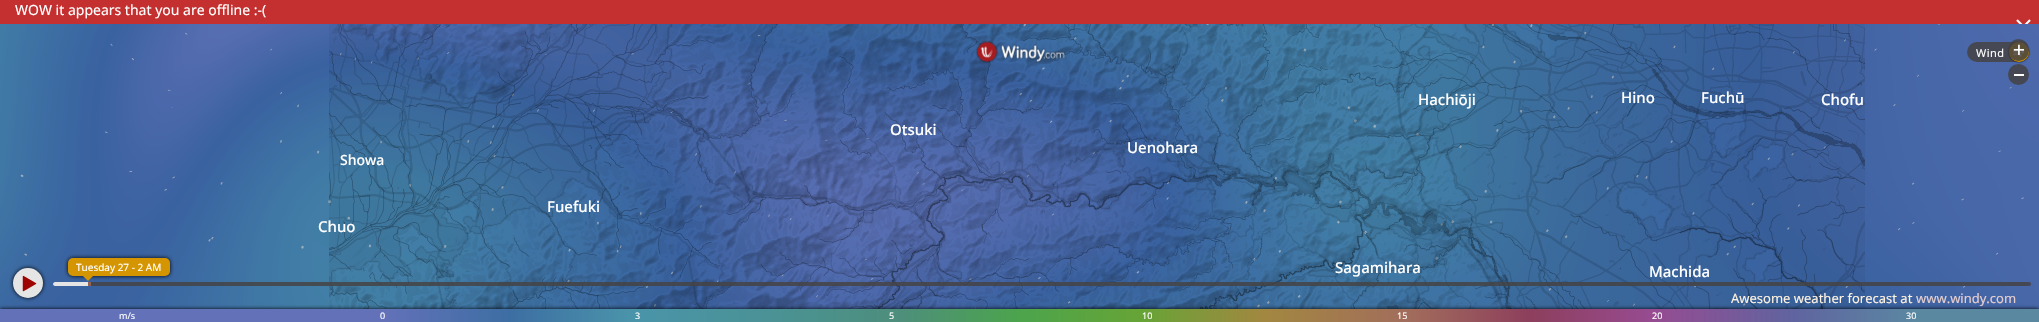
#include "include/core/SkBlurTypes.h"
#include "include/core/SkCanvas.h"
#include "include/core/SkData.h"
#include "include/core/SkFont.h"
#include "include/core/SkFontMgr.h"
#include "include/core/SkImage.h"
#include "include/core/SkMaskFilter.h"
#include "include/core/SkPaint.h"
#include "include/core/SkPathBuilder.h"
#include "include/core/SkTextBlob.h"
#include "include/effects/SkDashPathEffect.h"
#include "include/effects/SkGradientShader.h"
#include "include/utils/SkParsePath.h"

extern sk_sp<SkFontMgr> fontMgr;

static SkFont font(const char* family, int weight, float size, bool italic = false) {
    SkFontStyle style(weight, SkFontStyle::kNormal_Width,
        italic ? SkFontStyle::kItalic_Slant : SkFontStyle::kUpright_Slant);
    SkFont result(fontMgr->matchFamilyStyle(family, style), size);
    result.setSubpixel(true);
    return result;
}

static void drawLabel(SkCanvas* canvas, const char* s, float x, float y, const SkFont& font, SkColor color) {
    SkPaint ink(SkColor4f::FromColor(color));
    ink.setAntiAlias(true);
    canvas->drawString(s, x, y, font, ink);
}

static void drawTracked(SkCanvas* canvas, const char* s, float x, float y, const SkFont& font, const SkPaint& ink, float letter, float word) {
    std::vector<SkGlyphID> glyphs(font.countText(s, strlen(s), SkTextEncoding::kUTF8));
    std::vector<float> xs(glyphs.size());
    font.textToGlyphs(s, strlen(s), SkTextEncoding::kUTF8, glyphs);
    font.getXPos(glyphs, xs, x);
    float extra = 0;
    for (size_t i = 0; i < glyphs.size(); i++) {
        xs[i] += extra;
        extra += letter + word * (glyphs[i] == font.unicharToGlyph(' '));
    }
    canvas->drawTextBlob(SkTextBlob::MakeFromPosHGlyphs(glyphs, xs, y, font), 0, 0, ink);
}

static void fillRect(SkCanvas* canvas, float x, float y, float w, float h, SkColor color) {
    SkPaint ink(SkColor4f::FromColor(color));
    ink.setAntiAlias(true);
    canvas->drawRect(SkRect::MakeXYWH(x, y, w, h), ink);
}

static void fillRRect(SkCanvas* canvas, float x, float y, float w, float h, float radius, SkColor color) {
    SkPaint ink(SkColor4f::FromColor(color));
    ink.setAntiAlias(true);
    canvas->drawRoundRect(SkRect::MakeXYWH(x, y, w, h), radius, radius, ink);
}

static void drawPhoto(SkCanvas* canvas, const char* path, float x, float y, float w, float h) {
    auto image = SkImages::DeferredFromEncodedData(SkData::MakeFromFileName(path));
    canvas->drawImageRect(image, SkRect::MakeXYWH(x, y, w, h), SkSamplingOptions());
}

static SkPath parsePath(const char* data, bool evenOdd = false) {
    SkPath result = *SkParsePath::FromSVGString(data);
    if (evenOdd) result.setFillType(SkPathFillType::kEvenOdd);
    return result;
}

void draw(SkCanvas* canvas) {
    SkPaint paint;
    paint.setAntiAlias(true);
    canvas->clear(0xFFFFFFFF);
    fillRect(canvas, 0, 0, 2039, 24, 0xFFC42F2F);
    SkFont font1 = font("Noto Sans", 400, 14);
    drawLabel(canvas, "WOW it appears that you are offline :-(", 15, 15, font1, 0xFFFFFFFF);
    drawPhoto(canvas, "assets/img1.png", 2016, 19, 15, 5);
    drawPhoto(canvas, "assets/img10.png", 841, 24, 256, 176);
    drawPhoto(canvas, "assets/img6.png", 0, 24, 73, 176);
    drawPhoto(canvas, "assets/img7.png", 73, 24, 256, 176);
    drawPhoto(canvas, "assets/img8.png", 329, 24, 256, 176);
    drawPhoto(canvas, "assets/img9.png", 585, 24, 256, 176);
    drawPhoto(canvas, "assets/img11.png", 1097, 24, 256, 176);
    drawPhoto(canvas, "assets/img12.png", 1353, 24, 256, 176);
    drawPhoto(canvas, "assets/img13.png", 1609, 24, 256, 176);
    drawPhoto(canvas, "assets/img14.png", 1865, 24, 174, 176);
    drawPhoto(canvas, "assets/img15.png", 0, 200, 73, 109);
    drawPhoto(canvas, "assets/img16.png", 73, 200, 256, 109);
    drawPhoto(canvas, "assets/img17.png", 329, 200, 256, 109);
    drawPhoto(canvas, "assets/img18.png", 585, 200, 256, 109);
    drawPhoto(canvas, "assets/img19.png", 841, 200, 256, 109);
    drawPhoto(canvas, "assets/img20.png", 1097, 200, 256, 109);
    drawPhoto(canvas, "assets/img21.png", 1353, 200, 256, 109);
    drawPhoto(canvas, "assets/img22.png", 1609, 200, 256, 109);
    drawPhoto(canvas, "assets/img23.png", 1865, 200, 174, 109);
    drawPhoto(canvas, "assets/img24.png", 20, 24, 2004, 285);
    drawPhoto(canvas, "assets/img27.png", 841, 24, 256, 176);
    drawPhoto(canvas, "assets/img2.png", 975, 40, 24, 23);
    drawPhoto(canvas, "assets/img3.png", 1000, 44, 66, 19);
    fillRRect(canvas, 1967, 42, 62, 20, 10, 0xD6444141);
    SkFont font2 = font("Noto Sans", 400, 11);
    paint.setColor(0xFFFFFFFF);
    drawTracked(canvas, "Wind", 1976, 57, font2, paint, 0.5f, 0);
    paint.setColor(0xFF000000);
    paint.setMaskFilter(SkMaskFilter::MakeBlur(kNormal_SkBlurStyle, 1));
    canvas->drawRoundRect(SkRect::MakeXYWH(2009, 42, 20, 20), 10, 10, paint);
    paint.setMaskFilter(nullptr);
    paint.setColor(0xFFD49500);
    canvas->drawCircle(2019, 52, 10, paint);
    drawPhoto(canvas, "assets/img4.png", 2013, 50, 11, 7);
    fillRRect(canvas, 2008, 39, 21, 22, 10.5f, 0xD6444141);
    drawPhoto(canvas, "assets/img5.png", 2013, 44, 12, 11);
    paint.setColor(0xFF454752);
    canvas->drawCircle(2018.5f, 74.5f, 10.5f, paint);
    fillRect(canvas, 2014, 74, 10, 2, 0xFFFFFFFF);
    drawPhoto(canvas, "assets/img25.png", 329, 24, 256, 176);
    drawPhoto(canvas, "assets/img26.png", 585, 24, 256, 176);
    drawPhoto(canvas, "assets/img28.png", 1097, 24, 256, 176);
    drawPhoto(canvas, "assets/img29.png", 1353, 24, 256, 176);
    drawPhoto(canvas, "assets/img30.png", 1609, 24, 256, 176);
    drawPhoto(canvas, "assets/img31.png", 329, 200, 256, 109);
    drawPhoto(canvas, "assets/img32.png", 585, 200, 256, 109);
    drawPhoto(canvas, "assets/img33.png", 841, 200, 256, 109);
    drawPhoto(canvas, "assets/img34.png", 1097, 200, 256, 109);
    drawPhoto(canvas, "assets/img35.png", 1353, 200, 256, 109);
    drawPhoto(canvas, "assets/img36.png", 1609, 200, 256, 109);
    SkFont font3 = font("Noto Sans", 500, 15);
    drawLabel(canvas, "Hachiōji", 1418, 105, font3, 0xFFFFFFFF);
    drawLabel(canvas, "Hino", 1621, 103, font3, 0xFFFFFFFF);
    drawLabel(canvas, "Fuchū", 1701, 103, font3, 0xFFFFFFFF);
    drawLabel(canvas, "Chofu", 1821, 105, font3, 0xFFFFFFFF);
    drawLabel(canvas, "Otsuki", 890, 135, font3, 0xFFFFFFFF);
    drawLabel(canvas, "Uenohara", 1127, 153, font3, 0xFFFFFFFF);
    SkFont font4 = font("Noto Sans", 500, 14);
    drawLabel(canvas, "Showa", 340, 165, font4, 0xFFFFFFFF);
    drawLabel(canvas, "Fuefuki", 547, 212, font3, 0xFFFFFFFF);
    drawLabel(canvas, "Chuo", 318, 232, font3, 0xFFFFFFFF);
    drawLabel(canvas, "Sagamihara", 1335, 273, font3, 0xFFFFFFFF);
    drawLabel(canvas, "Machida", 1649, 277, font3, 0xFFFFFFFF);
    paint.setColor(0xFF000000);
    paint.setMaskFilter(SkMaskFilter::MakeBlur(kNormal_SkBlurStyle, 2));
    canvas->drawRoundRect(SkRect::MakeXYWH(13, 268, 30, 30), 15, 15, paint);
    paint.setMaskFilter(nullptr);
    paint.setColor(0xFFE5E5E5);
    canvas->drawCircle(28, 283, 15, paint);
    drawPhoto(canvas, "assets/img37.png", 22, 275, 15, 17);
    paint.setColor(0xFF000000);
    paint.setMaskFilter(SkMaskFilter::MakeBlur(kNormal_SkBlurStyle, 2));
    canvas->drawRoundRect(SkRect::MakeXYWH(68, 258, 102, 18), 5, 5, paint);
    paint.setMaskFilter(nullptr);
    fillRRect(canvas, 68, 258, 102, 18, 5, 0xFFD49500);
    SkFont font5 = font("Noto Sans", 400, 10);
    drawLabel(canvas, "Tuesday 27 - 2 AM", 76, 271, font5, 0xFFFFFFFF);
    paint.setColor(0xFFD49500);
    canvas->drawPath(parsePath("M83 276H93L88 281Z"), paint);
    fillRRect(canvas, 53, 282, 1978, 4, 2, 0xD6444141);
    paint.setColor(0xFFE5E5E5);
    canvas->drawPath(parsePath("M55 282H88V286H55C54 286 53 285 53 284C53 283 54 282 55 282Z"), paint);
    fillRect(canvas, 88, 282, 3, 4, 0xFF946051);
    paint.setColor(0xFF000000);
    paint.setMaskFilter(SkMaskFilter::MakeBlur(kNormal_SkBlurStyle, 2));
    canvas->drawRect(SkRect::MakeXYWH(0, 309, 2039, 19), paint);
    paint.setMaskFilter(nullptr);
    SkFont font6 = font("Noto Sans", 400, 13);
    drawLabel(canvas, "Awesome weather forecast at", 1731, 303, font6, 0xFFFFF3E1);
    drawLabel(canvas, "www.windy.com", 1916, 303, font6, 0xFFE6CECE);
    {
        const SkColor colors[] = {0xFF6271B8, 0xFF6271B8, 0xFF3D6EA3, 0xFF4A94AA, 0xFF4A9294, 0xFF4D8E7C, 0xFF4CA44C, 0xFF67A436, 0xFFA28740, 0xFFA26D5C, 0xFF8D3F5C, 0xFF974B91, 0xFF5F64A0, 0xFF5B88A1, 0xFF5B88A1};
        const float stops[] = {0, 0.19f, 0.25f, 0.31f, 0.38f, 0.44f, 0.5f, 0.56f, 0.62f, 0.69f, 0.75f, 0.81f, 0.88f, 0.94f, 1};
        const SkPoint ends[] = {{0, 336}, {2039, 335}};
        paint.setShader(SkGradientShader::MakeLinear(ends, colors, stops, 15, SkTileMode::kClamp));
        paint.setAlpha(255);
    }
    canvas->drawRect(SkRect::MakeXYWH(0, 309, 2039, 13), paint);
    SkFont font7 = font("Noto Sans", 400, 9);
    drawLabel(canvas, "m/s", 119, 319, font7, 0xFFFFFFFF);
    drawLabel(canvas, "0", 380, 319, font7, 0xFFFFFFFF);
    drawLabel(canvas, "3", 635, 319, font7, 0xFFFFFFFF);
    drawLabel(canvas, "5", 889, 319, font7, 0xFFFFFFFF);
    drawLabel(canvas, "10", 1142, 319, font7, 0xFFFFFFFF);
    drawLabel(canvas, "15", 1397, 319, font7, 0xFFFFFFFF);
    drawLabel(canvas, "20", 1652, 319, font7, 0xFFFFFFFF);
    drawLabel(canvas, "30", 1906, 319, font7, 0xFFFFFFFF);
}
